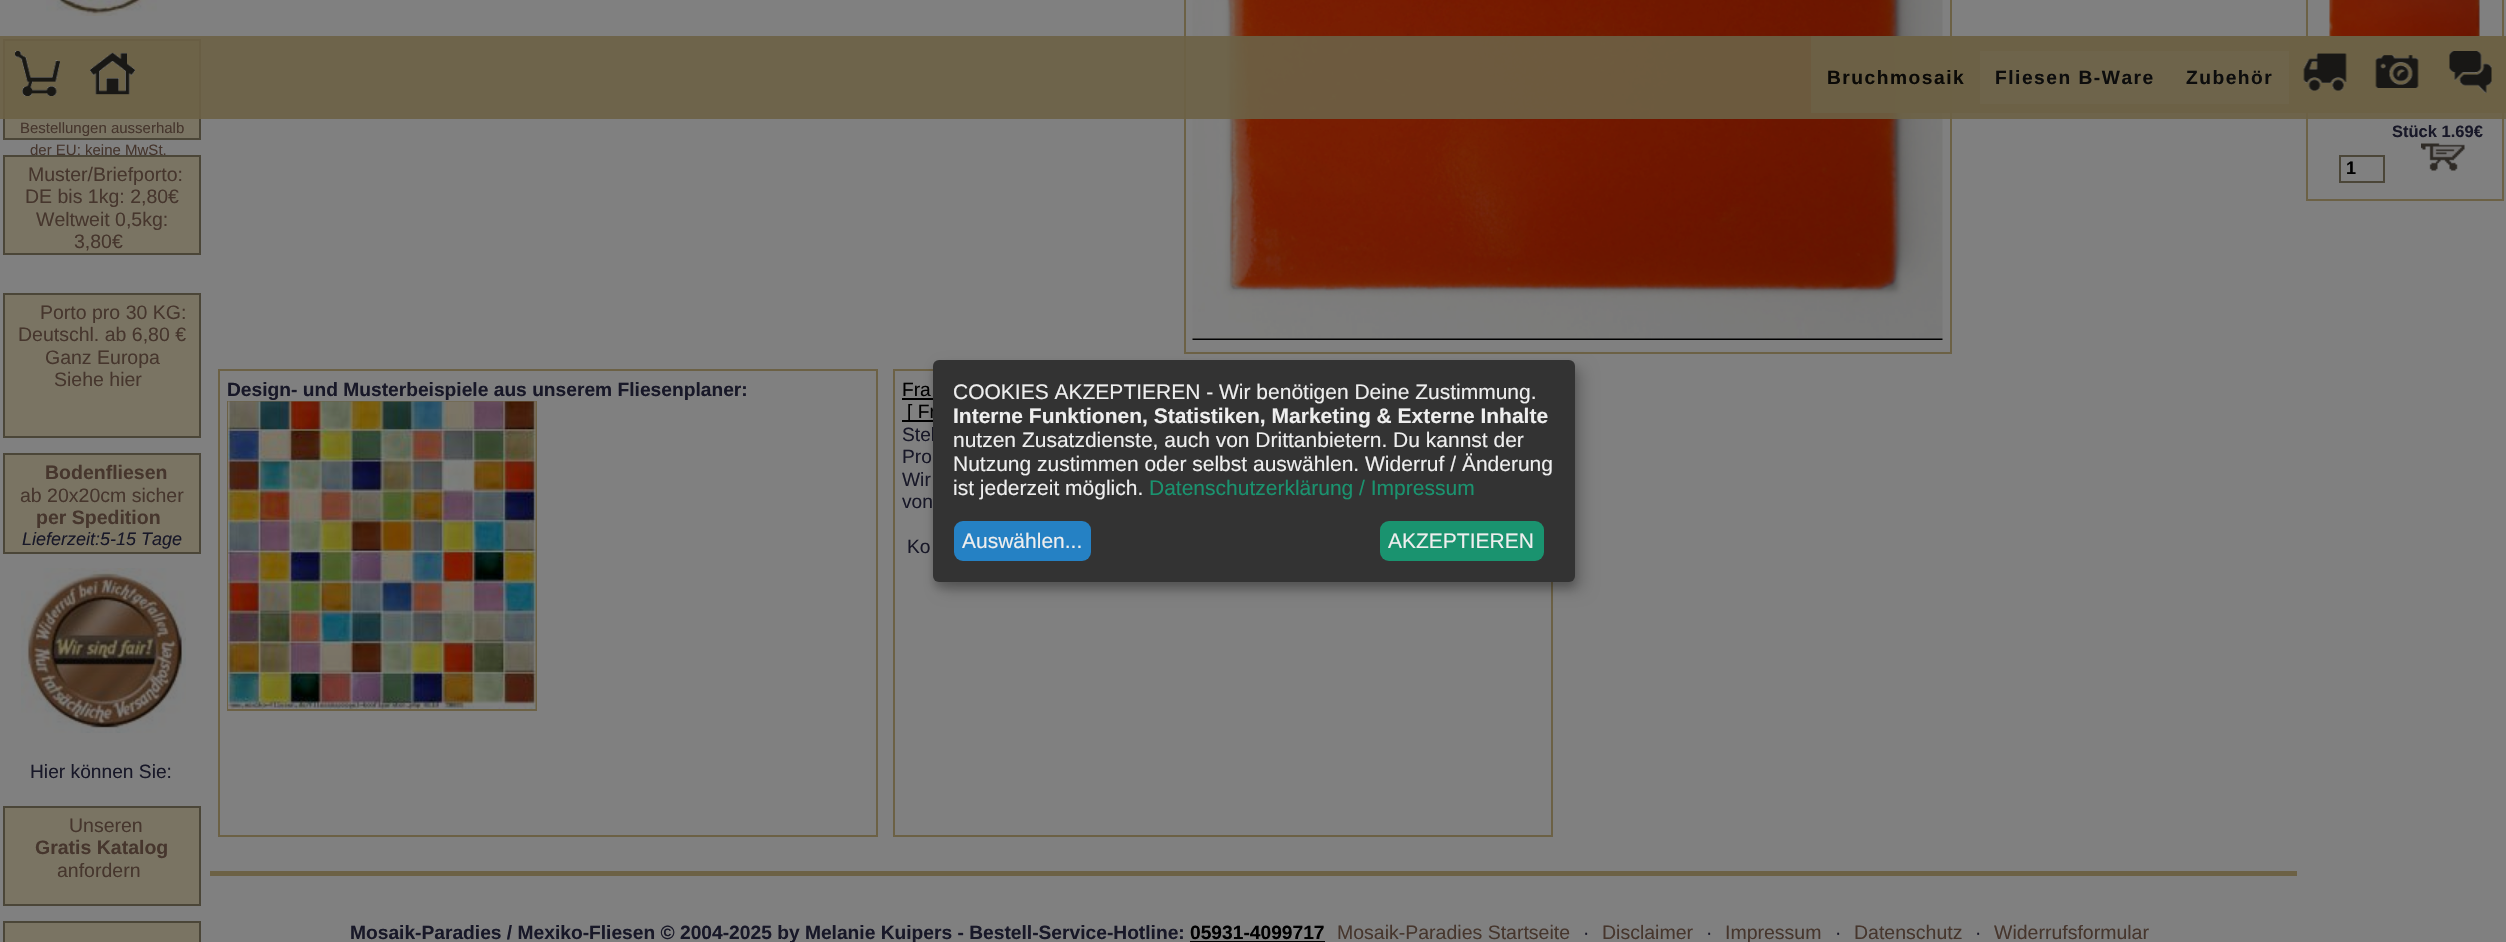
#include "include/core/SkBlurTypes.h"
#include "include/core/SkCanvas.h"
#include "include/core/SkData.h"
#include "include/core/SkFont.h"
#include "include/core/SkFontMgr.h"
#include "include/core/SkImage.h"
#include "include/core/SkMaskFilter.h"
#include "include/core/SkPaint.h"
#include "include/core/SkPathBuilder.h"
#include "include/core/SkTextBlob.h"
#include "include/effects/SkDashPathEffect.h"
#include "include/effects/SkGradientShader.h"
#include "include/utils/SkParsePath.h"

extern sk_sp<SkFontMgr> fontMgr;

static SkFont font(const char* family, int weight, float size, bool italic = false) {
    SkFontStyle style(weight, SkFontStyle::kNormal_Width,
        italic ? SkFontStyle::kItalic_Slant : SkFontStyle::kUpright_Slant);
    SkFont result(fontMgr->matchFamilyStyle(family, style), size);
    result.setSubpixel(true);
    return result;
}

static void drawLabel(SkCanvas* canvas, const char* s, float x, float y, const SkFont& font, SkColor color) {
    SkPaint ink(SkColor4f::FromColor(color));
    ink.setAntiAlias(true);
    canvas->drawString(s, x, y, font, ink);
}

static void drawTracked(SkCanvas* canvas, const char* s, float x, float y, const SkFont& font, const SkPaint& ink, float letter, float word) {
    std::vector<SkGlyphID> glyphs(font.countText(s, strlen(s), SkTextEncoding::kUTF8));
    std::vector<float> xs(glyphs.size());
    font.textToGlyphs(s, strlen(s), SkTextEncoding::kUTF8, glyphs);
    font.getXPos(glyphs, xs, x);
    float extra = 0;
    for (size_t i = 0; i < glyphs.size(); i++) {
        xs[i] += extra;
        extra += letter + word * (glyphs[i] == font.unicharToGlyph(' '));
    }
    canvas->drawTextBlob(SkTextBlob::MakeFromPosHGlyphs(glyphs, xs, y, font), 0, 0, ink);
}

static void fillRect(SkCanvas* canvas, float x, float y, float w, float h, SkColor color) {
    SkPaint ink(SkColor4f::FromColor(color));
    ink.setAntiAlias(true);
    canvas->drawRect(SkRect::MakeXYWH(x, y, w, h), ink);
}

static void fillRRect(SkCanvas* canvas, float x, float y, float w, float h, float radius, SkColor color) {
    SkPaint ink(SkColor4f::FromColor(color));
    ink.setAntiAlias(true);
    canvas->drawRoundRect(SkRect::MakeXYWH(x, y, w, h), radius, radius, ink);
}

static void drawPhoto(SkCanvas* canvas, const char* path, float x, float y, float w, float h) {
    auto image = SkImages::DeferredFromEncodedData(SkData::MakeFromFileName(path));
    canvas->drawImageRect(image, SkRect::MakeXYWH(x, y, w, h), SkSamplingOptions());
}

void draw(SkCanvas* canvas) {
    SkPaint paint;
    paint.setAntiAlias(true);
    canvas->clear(0xFF808080);
    paint.setColor(0xFF7A7463);
    canvas->drawRect(SkRect::MakeXYWH(4, 40, 196, 99), paint);
    paint.setStroke(true);
    paint.setStrokeWidth(2);
    paint.setColor(0xFF4B4638);
    canvas->drawRect(SkRect::MakeXYWH(4, 40, 196, 99), paint);
    paint.setColor(0xFF6C6145);
    canvas->drawRect(SkRect::MakeXYWH(1185, -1, 766, 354), paint);
    drawPhoto(canvas, "assets/img8.png", 1192, 0, 751, 340);
    canvas->drawRect(SkRect::MakeXYWH(2307, -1, 196, 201), paint);
    fillRect(canvas, 0, 36, 2506, 83, 0xE66C6145);
    drawPhoto(canvas, "assets/img1.png", 15, 51, 45, 45);
    drawPhoto(canvas, "assets/img2.png", 90, 52, 45, 43);
    fillRect(canvas, 1811, 36, 478, 77, 0xE66C6145);
    fillRect(canvas, 2289, 36, 217, 77, 0xFF6C6145);
    drawPhoto(canvas, "assets/img3.png", 2303, 53, 44, 38);
    SkFont font1 = font("Liberation Sans", 700, 19.2f);
    paint.setStroke(false);
    paint.setColor(0xFF0B0A07);
    drawTracked(canvas, "Bruchmosaik", 1827, 84, font1, paint, 1.5f, 0);
    fillRect(canvas, 1980, 51, 309, 53, 0xFF6E644B);
    paint.setColor(0xFF0D0D0D);
    drawTracked(canvas, "Fliesen B-Ware", 1995, 84, font1, paint, 1.5f, 0);
    drawTracked(canvas, "Zubehör", 2186, 84, font1, paint, 1.5f, 0);
    drawPhoto(canvas, "assets/img4.png", 2375, 55, 44, 33);
    drawPhoto(canvas, "assets/img5.png", 2449, 51, 43, 42);
    drawPhoto(canvas, "assets/img6.png", 46, 0, 111, 16);
    SkFont font2 = font("Liberation Sans", 400, 15);
    drawLabel(canvas, "Bestellungen ausserhalb", 20, 133, font2, 0xFF46362D);
    paint.setColor(0xFF7A7463);
    canvas->drawRect(SkRect::MakeXYWH(4, 156, 196, 98), paint);
    paint.setStroke(true);
    paint.setColor(0xFF4B4638);
    canvas->drawRect(SkRect::MakeXYWH(4, 156, 196, 98), paint);
    drawLabel(canvas, "der EU: keine MwSt.", 30, 155, font2, 0xFF46362D);
    SkFont font3 = font("Liberation Sans", 400, 19.5f);
    drawLabel(canvas, "Muster/Briefporto:", 28, 181, font3, 0xFF46362D);
    drawLabel(canvas, "DE bis 1kg: 2,80€", 25, 203, font3, 0xFF46362D);
    drawLabel(canvas, "Weltweit 0,5kg:", 36, 226, font3, 0xFF46362D);
    drawLabel(canvas, "3,80€", 74, 248, font3, 0xFF46362D);
    paint.setStroke(false);
    paint.setColor(0xFF7A7463);
    canvas->drawRect(SkRect::MakeXYWH(4, 294, 196, 143), paint);
    paint.setStroke(true);
    paint.setColor(0xFF4B4638);
    canvas->drawRect(SkRect::MakeXYWH(4, 294, 196, 143), paint);
    drawLabel(canvas, "Porto pro 30 KG:", 40, 319, font3, 0xFF46362D);
    drawLabel(canvas, "Deutschl. ab 6,80 €", 18, 341, font3, 0xFF46362D);
    drawLabel(canvas, "Ganz Europa", 45, 364, font3, 0xFF46362D);
    drawLabel(canvas, "Siehe hier", 54, 386, font3, 0xFF46362D);
    paint.setStroke(false);
    paint.setColor(0xFF7A7463);
    canvas->drawRect(SkRect::MakeXYWH(4, 454, 196, 99), paint);
    paint.setStroke(true);
    paint.setColor(0xFF4B4638);
    canvas->drawRect(SkRect::MakeXYWH(4, 454, 196, 99), paint);
    SkFont font4 = font("Liberation Sans", 700, 19.5f);
    drawLabel(canvas, "Bodenfliesen", 45, 479, font4, 0xFF46362D);
    drawLabel(canvas, "ab 20x20cm sicher", 20, 502, font3, 0xFF46362D);
    drawLabel(canvas, "per Spedition", 36, 524, font4, 0xFF46362D);
    SkFont font5 = font("Liberation Sans", 400, 18, true);
    drawLabel(canvas, "Lieferzeit:5-15 Tage", 22, 545, font5, 0xFF181828);
    drawPhoto(canvas, "assets/img7.png", 21, 568, 165, 165);
    SkFont font6 = font("Liberation Sans", 400, 19.2f);
    drawLabel(canvas, "Hier können Sie:", 30, 778, font6, 0xFF181828);
    paint.setStroke(false);
    paint.setColor(0xFF7A7463);
    canvas->drawRect(SkRect::MakeXYWH(4, 807, 196, 98), paint);
    paint.setStroke(true);
    paint.setColor(0xFF4B4638);
    canvas->drawRect(SkRect::MakeXYWH(4, 807, 196, 98), paint);
    drawLabel(canvas, "Unseren", 69, 832, font3, 0xFF46362D);
    drawLabel(canvas, "Gratis Katalog", 35, 854, font4, 0xFF46362D);
    drawLabel(canvas, "anfordern", 57, 877, font3, 0xFF46362D);
    paint.setStroke(false);
    paint.setColor(0xFF7A7463);
    canvas->drawRect(SkRect::MakeXYWH(4, 922, 196, 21), paint);
    paint.setStroke(true);
    paint.setColor(0xFF4B4638);
    canvas->drawRect(SkRect::MakeXYWH(4, 922, 196, 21), paint);
    drawPhoto(canvas, "assets/img9.png", 2329, 0, 151, 36);
    SkFont font7 = font("Liberation Sans", 700, 16.5f);
    drawLabel(canvas, "Stück 1.69€", 2392, 137, font7, 0xFF181828);
    canvas->drawRect(SkRect::MakeXYWH(2340, 156, 44, 26), paint);
    SkFont font8 = font("Liberation Sans", 700, 18);
    drawLabel(canvas, "1", 2346, 174, font8, 0xFF000000);
    drawPhoto(canvas, "assets/img10.png", 2421, 143, 44, 28);
    paint.setColor(0xFF6C6145);
    canvas->drawRect(SkRect::MakeXYWH(219, 370, 658, 466), paint);
    drawLabel(canvas, "Design- und Musterbeispiele aus unserem Fliesenplaner:", 227, 396, font1, 0xFF181828);
    canvas->drawRect(SkRect::MakeXYWH(228, 402, 308, 308), paint);
    drawPhoto(canvas, "assets/img11.png", 228, 401, 308, 308);
    canvas->drawRect(SkRect::MakeXYWH(894, 370, 658, 466), paint);
    drawLabel(canvas, "Fra", 902, 396, font6, 0xFF000000);
    fillRect(canvas, 902, 398, 31, 2, 0xFF000000);
    fillRect(canvas, 902, 420, 31, 2, 0xFF000000);
    drawLabel(canvas, "[ Fr", 907, 418, font6, 0xFF000000);
    drawLabel(canvas, "Stel", 902, 441, font6, 0xFF181828);
    drawLabel(canvas, "Pro", 902, 463, font6, 0xFF181828);
    drawLabel(canvas, "Wir", 902, 486, font6, 0xFF181828);
    drawLabel(canvas, "von", 902, 508, font6, 0xFF181828);
    drawLabel(canvas, "Ko", 907, 553, font6, 0xFF181828);
    paint.setStroke(false);
    paint.setColor(0x30000000);
    paint.setMaskFilter(SkMaskFilter::MakeBlur(kNormal_SkBlurStyle, 7.5f));
    canvas->drawRoundRect(SkRect::MakeXYWH(941, 368, 642, 222), 6, 6, paint);
    paint.setMaskFilter(nullptr);
    paint.setColor(0x33000000);
    paint.setMaskFilter(SkMaskFilter::MakeBlur(kNormal_SkBlurStyle, 4.5f));
    canvas->drawRoundRect(SkRect::MakeXYWH(933, 366, 642, 222), 6, 6, paint);
    paint.setMaskFilter(nullptr);
    fillRRect(canvas, 933, 360, 642, 222, 6, 0xFF333333);
    SkFont font9 = font("Liberation Sans", 400, 21);
    drawLabel(canvas, "COOKIES AKZEPTIEREN - Wir benötigen Deine Zustimmung.", 953, 399, font9, 0xFFEEEEEE);
    SkFont font10 = font("Liberation Sans", 700, 21);
    drawLabel(canvas, "Interne Funktionen, Statistiken, Marketing & Externe Inhalte", 953, 423, font10, 0xFFEEEEEE);
    drawLabel(canvas, "nutzen Zusatzdienste, auch von Drittanbietern. Du kannst der", 953, 447, font9, 0xFFEEEEEE);
    drawLabel(canvas, "Nutzung zustimmen oder selbst auswählen. Widerruf / Änderung", 953, 471, font9, 0xFFEEEEEE);
    drawLabel(canvas, "ist jederzeit möglich.", 953, 495, font9, 0xFFEEEEEE);
    drawLabel(canvas, "Datenschutzerklärung / Impressum", 1149, 495, font9, 0xFF1A936F);
    fillRRect(canvas, 954, 521, 137, 40, 9, 0xFF2581C4);
    drawLabel(canvas, "Auswählen...", 962, 548, font9, 0xFFEEEEEE);
    fillRRect(canvas, 1380, 521, 164, 40, 9, 0xFF1A936F);
    drawLabel(canvas, "AKZEPTIEREN", 1388, 548, font9, 0xFFEEEEEE);
    fillRect(canvas, 210, 871, 2087, 5, 0xFF6C6145);
    drawLabel(canvas, "Mosaik-Paradies / Mexiko-Fliesen © 2004-2025 by Melanie Kuipers - Bestell-Service-Hotline:", 350, 939, font1, 0xFF181828);
    drawLabel(canvas, "05931-4099717", 1190, 939, font1, 0xFF000000);
    fillRect(canvas, 1190, 941, 135, 1, 0xFF000000);
    drawLabel(canvas, "Mosaik-Paradies Startseite", 1337, 939, font3, 0xFF46362D);
    drawLabel(canvas, "·", 1583, 939, font6, 0xFF181828);
    drawLabel(canvas, "Disclaimer", 1602, 939, font3, 0xFF46362D);
    drawLabel(canvas, "·", 1706, 939, font6, 0xFF181828);
    drawLabel(canvas, "Impressum", 1725, 939, font3, 0xFF46362D);
    drawLabel(canvas, "·", 1835, 939, font6, 0xFF181828);
    drawLabel(canvas, "Datenschutz", 1854, 939, font3, 0xFF46362D);
    drawLabel(canvas, "·", 1975, 939, font6, 0xFF181828);
    drawLabel(canvas, "Widerrufsformular", 1994, 939, font3, 0xFF46362D);
}
